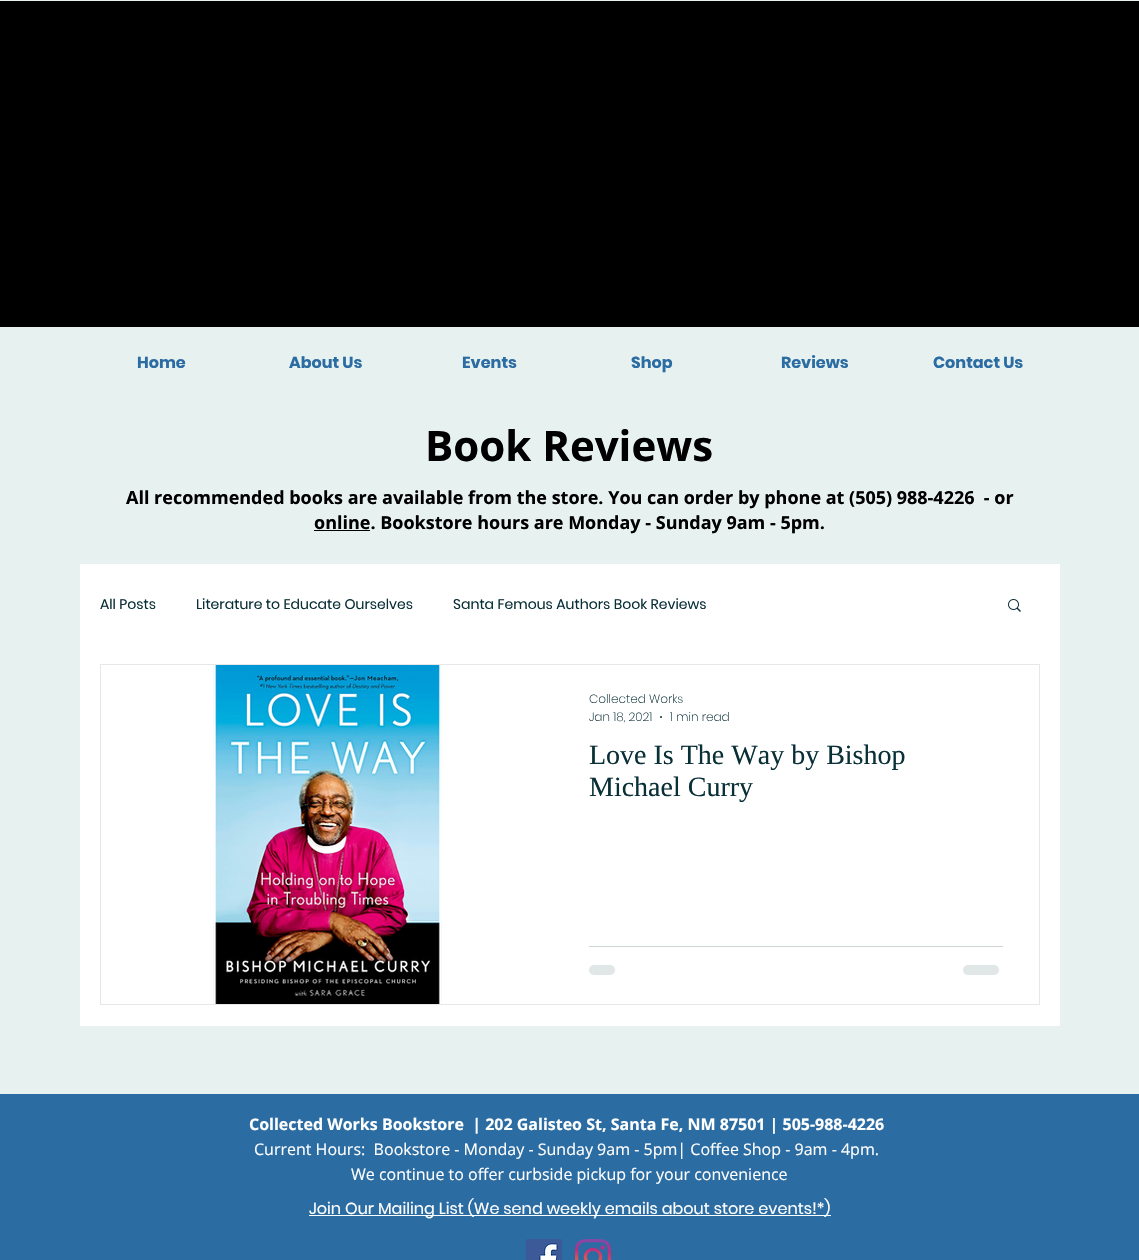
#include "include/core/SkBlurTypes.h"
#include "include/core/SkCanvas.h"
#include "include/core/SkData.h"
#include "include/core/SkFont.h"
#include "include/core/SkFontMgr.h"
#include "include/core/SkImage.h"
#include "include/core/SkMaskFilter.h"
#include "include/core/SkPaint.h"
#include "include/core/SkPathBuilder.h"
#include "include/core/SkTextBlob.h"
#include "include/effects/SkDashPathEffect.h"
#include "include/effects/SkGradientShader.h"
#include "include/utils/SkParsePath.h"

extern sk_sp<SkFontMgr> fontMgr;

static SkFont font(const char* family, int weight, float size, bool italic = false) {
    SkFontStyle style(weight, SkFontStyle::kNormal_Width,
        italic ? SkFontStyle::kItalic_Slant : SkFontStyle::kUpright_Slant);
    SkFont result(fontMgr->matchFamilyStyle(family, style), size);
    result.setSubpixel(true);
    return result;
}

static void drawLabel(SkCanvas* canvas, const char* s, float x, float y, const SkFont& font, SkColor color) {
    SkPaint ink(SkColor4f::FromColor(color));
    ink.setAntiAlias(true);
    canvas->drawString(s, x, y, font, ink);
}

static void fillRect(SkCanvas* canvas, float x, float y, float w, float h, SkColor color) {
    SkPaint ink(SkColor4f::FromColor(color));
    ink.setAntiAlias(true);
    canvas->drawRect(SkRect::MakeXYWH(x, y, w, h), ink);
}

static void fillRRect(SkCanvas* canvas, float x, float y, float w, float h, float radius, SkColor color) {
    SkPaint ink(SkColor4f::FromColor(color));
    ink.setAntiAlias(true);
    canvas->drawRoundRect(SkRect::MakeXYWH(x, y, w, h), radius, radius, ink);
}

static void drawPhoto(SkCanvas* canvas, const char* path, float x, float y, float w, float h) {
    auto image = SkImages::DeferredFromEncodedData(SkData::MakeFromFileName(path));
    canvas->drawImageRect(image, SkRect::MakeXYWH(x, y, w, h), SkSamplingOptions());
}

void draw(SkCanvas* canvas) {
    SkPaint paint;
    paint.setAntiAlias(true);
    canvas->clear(0xFFE7F1F0);
    fillRect(canvas, 0, 1, 1139, 326, 0xFF000000);
    SkFont font1 = font("Poppins", 700, 16);
    drawLabel(canvas, "Home", 137, 368, font1, 0xFF2B6CA3);
    drawLabel(canvas, "About Us", 289, 368, font1, 0xFF2B6CA3);
    drawLabel(canvas, "Events", 462, 368, font1, 0xFF2B6CA3);
    drawLabel(canvas, "Shop", 631, 368, font1, 0xFF2B6CA3);
    drawLabel(canvas, "Reviews", 781, 368, font1, 0xFF2B6CA3);
    drawLabel(canvas, "Contact Us", 933, 368, font1, 0xFF2B6CA3);
    SkFont font2 = font("Open Sans", 700, 42);
    drawLabel(canvas, "Book Reviews", 425, 461, font2, 0xFF000000);
    SkFont font3 = font("Open Sans", 700, 18);
    drawLabel(canvas, "All recommended books are available from the store. You can order by phone at (505) 988-4226  - or", 126, 504, font3, 0xFF000000);
    fillRect(canvas, 314, 530, 56, 1, 0xFF000000);
    drawLabel(canvas, "online. Bookstore hours are Monday - Sunday 9am - 5pm.", 314, 529, font3, 0xFF000000);
    fillRect(canvas, 80, 564, 980, 462, 0xFFFFFFFF);
    SkFont font4 = font("Poppins", 400, 14);
    drawLabel(canvas, "All Posts", 100, 609, font4, 0xFF092F37);
    drawLabel(canvas, "Literature to Educate Ourselves", 196, 609, font4, 0xFF092F37);
    drawLabel(canvas, "Santa Femous Authors Book Reviews", 453, 609, font4, 0xFF092F37);
    drawPhoto(canvas, "assets/img1.png", 1008, 599, 13, 13);
    paint.setStroke(true);
    paint.setStrokeWidth(1);
    paint.setColor(0xFFE8E6E6);
    canvas->drawRect(SkRect::MakeXYWH(100.5f, 664.5f, 939, 340), paint);
    drawPhoto(canvas, "assets/img2.png", 151, 665, 354, 339);
    SkFont font5 = font("Poppins", 200, 12);
    drawLabel(canvas, "Collected Works", 589, 703, font5, 0xFF092F37);
    drawLabel(canvas, "Jan 18, 2021", 589, 721, font5, 0xFF092F37);
    paint.setStroke(false);
    paint.setColor(0xFF092F37);
    canvas->drawCircle(661, 717, 1, paint);
    drawLabel(canvas, "1 min read", 670, 721, font5, 0xFF092F37);
    SkFont font6 = font("Liberation Serif", 400, 28);
    drawLabel(canvas, "Love Is The Way by Bishop", 589, 764, font6, 0xFF092F37);
    drawLabel(canvas, "Michael Curry", 589, 796, font6, 0xFF092F37);
    fillRect(canvas, 589, 946, 414, 1, 0xFFCED5D7);
    fillRRect(canvas, 589, 965, 26, 10, 5, 0xFFE1E6E7);
    fillRRect(canvas, 963, 965, 36, 10, 5, 0xFFE1E6E7);
    fillRect(canvas, 0, 1094, 1139, 166, 0xFF2B6CA3);
    SkFont font7 = font("Open Sans", 700, 16);
    drawLabel(canvas, "Collected Works Bookstore  | 202 Galisteo St, Santa Fe, NM 87501 | 505-988-4226", 249, 1130, font7, 0xFFFFFFFE);
    SkFont font8 = font("Open Sans", 400, 16);
    drawLabel(canvas, "Current Hours:  Bookstore - Monday - Sunday 9am - 5pm| Coffee Shop - 9am - 4pm.", 254, 1155, font8, 0xFFFFFFFE);
    drawLabel(canvas, "We continue to offer curbside pickup for your convenience", 351, 1180, font8, 0xFFFFFFFE);
    fillRect(canvas, 309, 1215, 522, 1, 0xFFFFFFFE);
    SkFont font9 = font("Poppins", 400, 16);
    drawLabel(canvas, "Join Our Mailing List (We send weekly emails about store events!*)", 309, 1214, font9, 0xFFFFFFFE);
    drawPhoto(canvas, "assets/img3.png", 526, 1239, 36, 21);
    drawPhoto(canvas, "assets/img4.png", 575, 1239, 36, 21);
}
